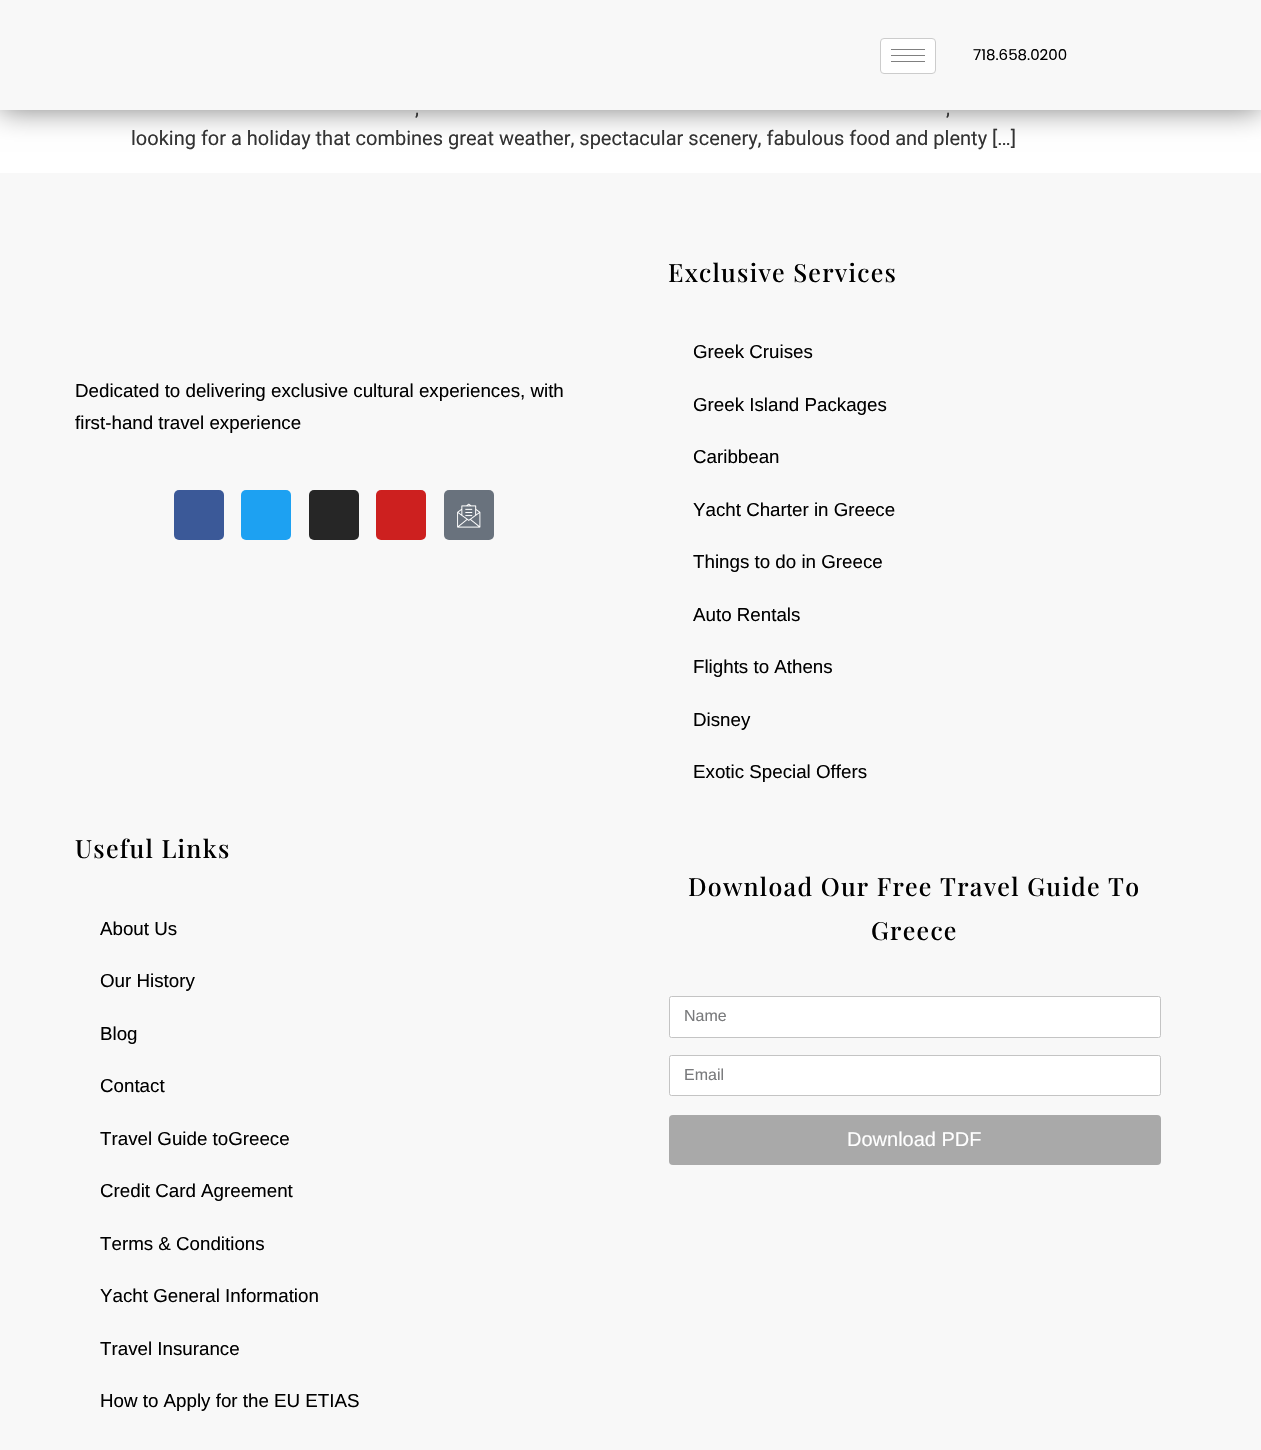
#include "include/core/SkBlurTypes.h"
#include "include/core/SkCanvas.h"
#include "include/core/SkData.h"
#include "include/core/SkFont.h"
#include "include/core/SkFontMgr.h"
#include "include/core/SkImage.h"
#include "include/core/SkMaskFilter.h"
#include "include/core/SkPaint.h"
#include "include/core/SkPathBuilder.h"
#include "include/core/SkTextBlob.h"
#include "include/effects/SkDashPathEffect.h"
#include "include/effects/SkGradientShader.h"
#include "include/utils/SkParsePath.h"

extern sk_sp<SkFontMgr> fontMgr;

static SkFont font(const char* family, int weight, float size, bool italic = false) {
    SkFontStyle style(weight, SkFontStyle::kNormal_Width,
        italic ? SkFontStyle::kItalic_Slant : SkFontStyle::kUpright_Slant);
    SkFont result(fontMgr->matchFamilyStyle(family, style), size);
    result.setSubpixel(true);
    return result;
}

static void drawLabel(SkCanvas* canvas, const char* s, float x, float y, const SkFont& font, SkColor color) {
    SkPaint ink(SkColor4f::FromColor(color));
    ink.setAntiAlias(true);
    canvas->drawString(s, x, y, font, ink);
}

static void drawTracked(SkCanvas* canvas, const char* s, float x, float y, const SkFont& font, const SkPaint& ink, float letter, float word) {
    std::vector<SkGlyphID> glyphs(font.countText(s, strlen(s), SkTextEncoding::kUTF8));
    std::vector<float> xs(glyphs.size());
    font.textToGlyphs(s, strlen(s), SkTextEncoding::kUTF8, glyphs);
    font.getXPos(glyphs, xs, x);
    float extra = 0;
    for (size_t i = 0; i < glyphs.size(); i++) {
        xs[i] += extra;
        extra += letter + word * (glyphs[i] == font.unicharToGlyph(' '));
    }
    canvas->drawTextBlob(SkTextBlob::MakeFromPosHGlyphs(glyphs, xs, y, font), 0, 0, ink);
}

static void fillRect(SkCanvas* canvas, float x, float y, float w, float h, SkColor color) {
    SkPaint ink(SkColor4f::FromColor(color));
    ink.setAntiAlias(true);
    canvas->drawRect(SkRect::MakeXYWH(x, y, w, h), ink);
}

static void fillRRect(SkCanvas* canvas, float x, float y, float w, float h, float radius, SkColor color) {
    SkPaint ink(SkColor4f::FromColor(color));
    ink.setAntiAlias(true);
    canvas->drawRoundRect(SkRect::MakeXYWH(x, y, w, h), radius, radius, ink);
}

static void drawPhoto(SkCanvas* canvas, const char* path, float x, float y, float w, float h) {
    auto image = SkImages::DeferredFromEncodedData(SkData::MakeFromFileName(path));
    canvas->drawImageRect(image, SkRect::MakeXYWH(x, y, w, h), SkSamplingOptions());
}

void draw(SkCanvas* canvas) {
    SkPaint paint;
    paint.setAntiAlias(true);
    canvas->clear(0xFFFFFFFF);
    paint.setColor(0x80000000);
    paint.setMaskFilter(SkMaskFilter::MakeBlur(kNormal_SkBlurStyle, 14));
    canvas->drawRect(SkRect::MakeXYWH(0, 0, 1261, 110), paint);
    paint.setMaskFilter(nullptr);
    fillRect(canvas, 0, 0, 1261, 110, 0xFFF8F8F8);
    paint.setColor(0xFFFFFFFF);
    canvas->drawRoundRect(SkRect::MakeXYWH(880.5f, 38.5f, 55, 35), 3.5f, 3.5f, paint);
    paint.setStroke(true);
    paint.setStrokeWidth(1);
    paint.setColor(0xFFCCCCCC);
    canvas->drawRoundRect(SkRect::MakeXYWH(880.5f, 38.5f, 55, 35), 3.5f, 3.5f, paint);
    fillRect(canvas, 891, 49, 34, 1, 0xFF808080);
    fillRect(canvas, 891, 55, 34, 1, 0xFF808080);
    fillRect(canvas, 891, 61, 34, 1, 0xFF808080);
    SkFont font1 = font("Poppins", 400, 15);
    drawLabel(canvas, "718.658.0200", 973, 60, font1, 0xFF000000);
    SkFont font2 = font("Roboto", 400, 20);
    drawLabel(canvas, ",", 415, 115, font2, 0xFF333333);
    drawLabel(canvas, ",", 946, 115, font2, 0xFF333333);
    drawLabel(canvas, "looking for a holiday that combines great weather, spectacular scenery, fabulous food and plenty […]", 131, 145, font2, 0xFF333333);
    fillRect(canvas, 0, 173, 1261, 1277, 0xFFF8F8F8);
    SkFont font3 = font("Liberation Sans", 400, 18.75f);
    drawLabel(canvas, "Dedicated to delivering exclusive cultural experiences, with", 75, 397, font3, 0xFF000000);
    drawLabel(canvas, "first-hand travel experience", 75, 429, font3, 0xFF000000);
    fillRRect(canvas, 174, 490, 50, 50, 5, 0xFF3B5998);
    fillRRect(canvas, 241, 490, 50, 50, 5, 0xFF1DA1F2);
    fillRRect(canvas, 309, 490, 50, 50, 5, 0xFF262626);
    fillRRect(canvas, 376, 490, 50, 50, 5, 0xFFCD201F);
    fillRRect(canvas, 444, 490, 50, 50, 5, 0xFF69727D);
    drawPhoto(canvas, "assets/img1.png", 457, 503, 24, 25);
    SkFont font4 = font("Playfair Display", 500, 25);
    paint.setStroke(false);
    paint.setColor(0xFF000000);
    drawTracked(canvas, "Exclusive Services", 668, 282, font4, paint, 1.25f, 0);
    drawLabel(canvas, "Greek Cruises", 693, 358, font3, 0xFF000000);
    drawLabel(canvas, "Greek Island Packages", 693, 411, font3, 0xFF000000);
    drawLabel(canvas, "Caribbean", 693, 463, font3, 0xFF000000);
    drawLabel(canvas, "Yacht Charter in Greece", 693, 516, font3, 0xFF000000);
    drawLabel(canvas, "Things to do in Greece", 693, 568, font3, 0xFF000000);
    drawLabel(canvas, "Auto Rentals", 693, 621, font3, 0xFF000000);
    drawLabel(canvas, "Flights to Athens", 693, 673, font3, 0xFF000000);
    drawLabel(canvas, "Disney", 693, 726, font3, 0xFF000000);
    drawLabel(canvas, "Exotic Special Offers", 693, 778, font3, 0xFF000000);
    drawTracked(canvas, "Useful Links", 75, 858, font4, paint, 1.25f, 0);
    drawLabel(canvas, "About Us", 100, 935, font3, 0xFF000000);
    drawLabel(canvas, "Our History", 100, 987, font3, 0xFF000000);
    drawLabel(canvas, "Blog", 100, 1040, font3, 0xFF000000);
    drawLabel(canvas, "Contact", 100, 1092, font3, 0xFF000000);
    drawLabel(canvas, "Travel Guide toGreece", 100, 1145, font3, 0xFF000000);
    drawLabel(canvas, "Credit Card Agreement", 100, 1197, font3, 0xFF000000);
    drawLabel(canvas, "Terms & Conditions", 100, 1250, font3, 0xFF000000);
    drawLabel(canvas, "Yacht General Information", 100, 1302, font3, 0xFF000000);
    drawLabel(canvas, "Travel Insurance", 100, 1355, font3, 0xFF000000);
    drawLabel(canvas, "How to Apply for the EU ETIAS", 100, 1407, font3, 0xFF000000);
    drawTracked(canvas, "Download Our Free Travel Guide To", 688, 896, font4, paint, 1.25f, 0);
    drawTracked(canvas, "Greece", 871, 940, font4, paint, 1.25f, 0);
    paint.setColor(0xFFFFFFFF);
    canvas->drawRoundRect(SkRect::MakeXYWH(669.5f, 996.5f, 491, 41), 2, 2, paint);
    paint.setStroke(true);
    paint.setColor(0xFFC4C4C4);
    canvas->drawRoundRect(SkRect::MakeXYWH(669.5f, 996.5f, 491, 41), 2, 2, paint);
    SkFont font5 = font("Liberation Sans", 400, 16);
    drawLabel(canvas, "Name", 684, 1021, font5, 0xFF797A7C);
    paint.setStroke(false);
    paint.setColor(0xFFFFFFFF);
    canvas->drawRoundRect(SkRect::MakeXYWH(669.5f, 1055.5f, 491, 40), 2, 2, paint);
    paint.setStroke(true);
    paint.setColor(0xFFC4C4C4);
    canvas->drawRoundRect(SkRect::MakeXYWH(669.5f, 1055.5f, 491, 40), 2, 2, paint);
    drawLabel(canvas, "Email", 684, 1080, font5, 0xFF797A7C);
    fillRRect(canvas, 669, 1115, 492, 50, 4, 0xFFA9A9A9);
    SkFont font6 = font("Liberation Sans", 400, 20);
    drawLabel(canvas, "Download PDF", 847, 1146, font6, 0xFFFFFFFF);
}
